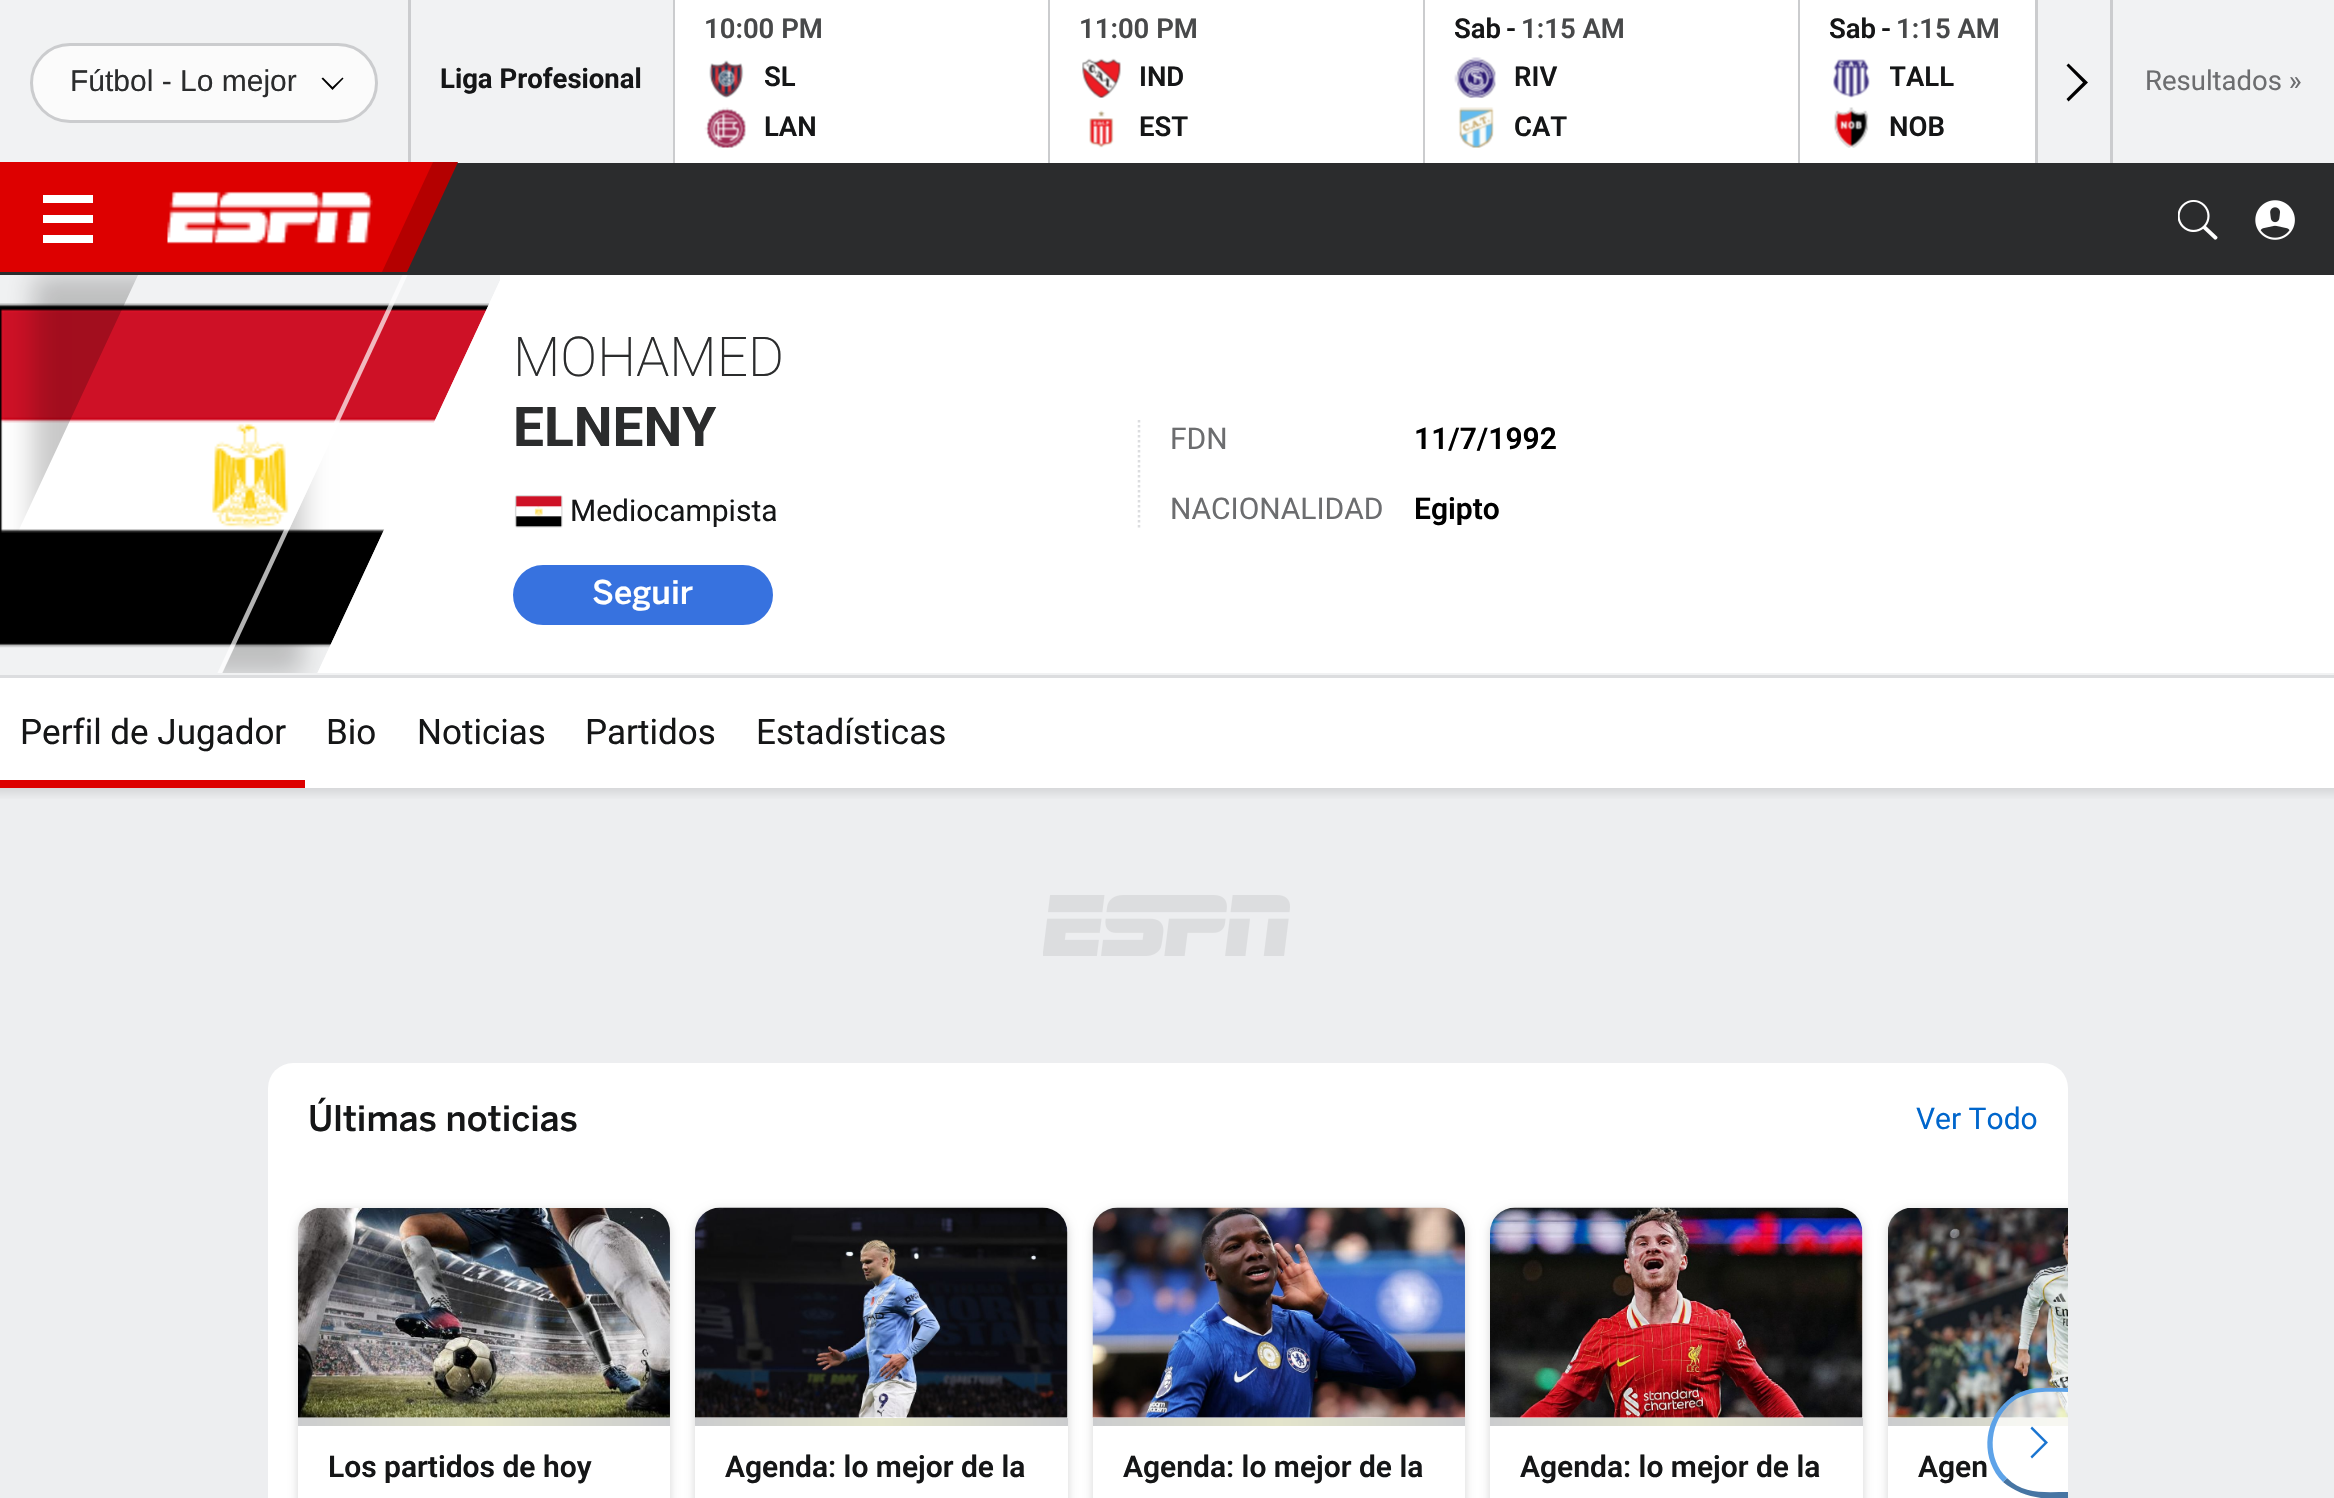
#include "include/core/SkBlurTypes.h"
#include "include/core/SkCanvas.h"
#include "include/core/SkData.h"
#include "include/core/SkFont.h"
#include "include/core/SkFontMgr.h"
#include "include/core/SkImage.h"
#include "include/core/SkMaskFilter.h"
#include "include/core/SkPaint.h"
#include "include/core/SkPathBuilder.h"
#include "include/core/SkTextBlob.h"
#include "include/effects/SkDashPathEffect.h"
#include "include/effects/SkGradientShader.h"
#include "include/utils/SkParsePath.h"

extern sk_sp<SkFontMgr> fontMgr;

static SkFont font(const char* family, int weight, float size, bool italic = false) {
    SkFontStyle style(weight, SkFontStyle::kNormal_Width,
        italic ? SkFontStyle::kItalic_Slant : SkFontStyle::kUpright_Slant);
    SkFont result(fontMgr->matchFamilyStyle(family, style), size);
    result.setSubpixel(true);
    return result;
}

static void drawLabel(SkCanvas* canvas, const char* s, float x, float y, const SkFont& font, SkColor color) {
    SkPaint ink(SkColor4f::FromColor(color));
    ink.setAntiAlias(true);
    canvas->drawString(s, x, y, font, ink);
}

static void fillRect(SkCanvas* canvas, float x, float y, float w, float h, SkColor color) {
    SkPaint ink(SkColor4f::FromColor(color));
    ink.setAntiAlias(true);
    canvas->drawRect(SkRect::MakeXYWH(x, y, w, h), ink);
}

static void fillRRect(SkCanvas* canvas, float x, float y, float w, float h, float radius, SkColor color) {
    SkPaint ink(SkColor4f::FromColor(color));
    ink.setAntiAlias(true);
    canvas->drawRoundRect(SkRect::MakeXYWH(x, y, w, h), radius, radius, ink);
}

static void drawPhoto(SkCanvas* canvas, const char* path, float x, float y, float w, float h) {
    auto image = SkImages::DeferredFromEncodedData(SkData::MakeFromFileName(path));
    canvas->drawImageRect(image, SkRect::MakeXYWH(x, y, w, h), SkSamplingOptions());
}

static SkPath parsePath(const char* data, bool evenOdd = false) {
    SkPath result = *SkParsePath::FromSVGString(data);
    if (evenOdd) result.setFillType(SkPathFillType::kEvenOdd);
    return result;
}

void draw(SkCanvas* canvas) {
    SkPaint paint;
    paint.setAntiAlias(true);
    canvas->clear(0xFFEDEEF0);
    fillRect(canvas, 0, 0, 2334, 163, 0xFFF1F2F3);
    fillRect(canvas, 408, 0, 3, 163, 0xFFCBCCCE);
    paint.setColor(0xFFFBFBFB);
    canvas->drawRoundRect(SkRect::MakeXYWH(31.5f, 44.5f, 345, 77), 38.5f, 38.5f, paint);
    paint.setStroke(true);
    paint.setStrokeWidth(3);
    paint.setColor(0xFFCBCCCE);
    canvas->drawRoundRect(SkRect::MakeXYWH(31.5f, 44.5f, 345, 77), 38.5f, 38.5f, paint);
    SkFont font1 = font("Liberation Sans", 400, 30);
    drawLabel(canvas, "Fútbol - Lo mejor", 70, 91, font1, 0xFF2B2C2D);
    paint.setStroke(false);
    paint.setColor(0xFF000000);
    canvas->drawPath(parsePath("M343.5 78.5L342.5 77.5L332.5 87L323 77.5L321.5 78.5L332.5 90Z"), paint);
    fillRect(canvas, 673, 0, 2, 163, 0xFFCBCCCE);
    SkFont font2 = font("Roboto", 700, 27.5f);
    drawLabel(canvas, "Liga Profesional", 440, 88, font2, 0xFF151617);
    fillRect(canvas, 675, 0, 373, 163, 0xFFFFFFFF);
    fillRect(canvas, 1048, 0, 2, 163, 0xFFCBCCCE);
    SkFont font3 = font("Roboto", 600, 27.5f);
    drawLabel(canvas, "10:00 PM", 704, 38, font3, 0xFF48494A);
    drawPhoto(canvas, "assets/img1.png", 709, 60, 35, 38);
    drawLabel(canvas, "SL", 764, 86, font3, 0xFF151617);
    drawPhoto(canvas, "assets/img2.png", 704, 107, 42, 41);
    drawLabel(canvas, "LAN", 764, 136, font3, 0xFF151617);
    fillRect(canvas, 1050, 0, 373, 163, 0xFFFFFFFF);
    fillRect(canvas, 1423, 0, 2, 163, 0xFFCBCCCE);
    drawLabel(canvas, "11:00 PM", 1079, 38, font3, 0xFF48494A);
    drawPhoto(canvas, "assets/img3.png", 1082, 58, 39, 40);
    drawLabel(canvas, "IND", 1139, 86, font3, 0xFF151617);
    drawPhoto(canvas, "assets/img4.png", 1089, 110, 25, 38);
    drawLabel(canvas, "EST", 1139, 136, font3, 0xFF151617);
    fillRect(canvas, 1425, 0, 373, 163, 0xFFFFFFFF);
    fillRect(canvas, 1798, 0, 2, 163, 0xFFCBCCCE);
    drawLabel(canvas, "Sab", 1454, 38, font3, 0xFF151617);
    drawLabel(canvas, "-", 1506, 38, font3, 0xFF151617);
    drawLabel(canvas, "1:15 AM", 1521, 38, font3, 0xFF48494A);
    drawPhoto(canvas, "assets/img5.png", 1454, 57, 42, 41);
    drawLabel(canvas, "RIV", 1514, 86, font3, 0xFF151617);
    drawPhoto(canvas, "assets/img6.png", 1458, 107, 36, 41);
    drawLabel(canvas, "CAT", 1514, 136, font3, 0xFF151617);
    fillRect(canvas, 1800, 0, 235, 163, 0xFFFFFFFF);
    drawLabel(canvas, "Sab", 1829, 38, font3, 0xFF151617);
    drawLabel(canvas, "-", 1881, 38, font3, 0xFF151617);
    drawLabel(canvas, "1:15 AM", 1896, 38, font3, 0xFF48494A);
    drawPhoto(canvas, "assets/img7.png", 1833, 59, 37, 39);
    canvas->save();
    canvas->clipRect(SkRect::MakeXYWH(1890, 63, 145, 32));
    drawLabel(canvas, "TALL", 1889, 86, font3, 0xFF151617);
    canvas->restore();
    drawPhoto(canvas, "assets/img8.png", 1834, 107, 35, 41);
    drawLabel(canvas, "NOB", 1889, 136, font3, 0xFF151617);
    fillRect(canvas, 2035, 0, 3, 163, 0xFFCBCCCE);
    canvas->drawPath(parsePath("M2068.5 63.5L2066.5 65.5L2083 82.5L2066.5 99L2068.5 101.5L2088 82.5Z"), paint);
    fillRect(canvas, 2110, 0, 3, 163, 0xFFCBCCCE);
    SkFont font4 = font("Roboto", 400, 27.5f);
    drawLabel(canvas, "Resultados »", 2145, 90, font4, 0xFF6C6D6F);
    fillRect(canvas, 0, 675, 2334, 3, 0xFFDCDDDF);
    fillRect(canvas, 0, 673, 2334, 2, 0xFFF1F2F3);
    fillRect(canvas, 0, 275, 500, 398, 0xFFF1F2F3);
    drawPhoto(canvas, "assets/img12.png", 0, 303, 490, 345);
    canvas->save();
    canvas->clipRect(SkRect::MakeXYWH(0, 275, 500, 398));
    canvas->clipPath(parsePath("M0 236H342V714H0ZM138.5 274H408.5L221.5 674H-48.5Z", true), true);
    paint.setColor(0x36000000);
    paint.setMaskFilter(SkMaskFilter::MakeBlur(kNormal_SkBlurStyle, 12.5f));
    canvas->drawRect(SkRect::MakeXYWH(33, 275, 270, 400), paint);
    paint.setMaskFilter(nullptr);
    canvas->restore();
    fillRect(canvas, 0, 163, 2334, 112, 0xFF2B2C2D);
    paint.setColor(0xFFB40000);
    canvas->drawPath(parsePath("M133 162H458L407 272H82Z"), paint);
    paint.setColor(0xFFDD0000);
    canvas->drawPath(parsePath("M-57 162H433L382 272H-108Z"), paint);
    drawPhoto(canvas, "assets/img9.png", 167, 191, 206, 53);
    fillRect(canvas, 43, 215, 50, 8, 0xFFFFFFFF);
    fillRect(canvas, 43, 195, 50, 8, 0xFFFFFFFF);
    fillRect(canvas, 43, 235, 50, 8, 0xFFFFFFFF);
    drawPhoto(canvas, "assets/img10.png", 2178, 200, 40, 40);
    drawPhoto(canvas, "assets/img11.png", 2255, 200, 40, 40);
    fillRect(canvas, 500, 275, 1834, 398, 0xFFFFFFFF);
    canvas->save();
    canvas->clipRect(SkRect::MakeXYWH(0, 275, 500, 398));
    paint.setColor(0xB3FFFFFF);
    canvas->drawPath(parsePath("M403 274H408L222 674H217Z"), paint);
    paint.setColor(0xFFFFFFFF);
    canvas->drawPath(parsePath("M503 274H693L507 674H317Z"), paint);
    paint.setColor(0xE6FFFFFF);
    canvas->drawPath(parsePath("M503 274H693L507 674H317Z"), paint);
    canvas->restore();
    SkFont font5 = font("Roboto", 200, 55);
    drawLabel(canvas, "MOHAMED", 513, 376, font5, 0xFF2B2C2D);
    SkFont font6 = font("Roboto", 700, 55);
    drawLabel(canvas, "ELNENY", 513, 446, font6, 0xFF2B2C2D);
    drawPhoto(canvas, "assets/img13.png", 514, 495, 49, 33);
    SkFont font7 = font("Roboto", 400, 30);
    drawLabel(canvas, "Mediocampista", 570, 521, font7, 0xFF151617);
    paint.setColor(0xFF3772DF);
    canvas->drawRoundRect(SkRect::MakeXYWH(514.5f, 566.5f, 257, 57), 28.5f, 28.5f, paint);
    paint.setStroke(true);
    canvas->drawRoundRect(SkRect::MakeXYWH(514.5f, 566.5f, 257, 57), 28.5f, 28.5f, paint);
    SkFont font8 = font("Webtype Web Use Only", 500, 32.5f);
    drawLabel(canvas, "Seguir", 592, 604, font8, 0xFFFFFFFF);
    paint.setStrokeWidth(2.5f);
    paint.setColor(0xFFDCDDDF);
    paint.setPathEffect(SkDashPathEffect::Make({{2.5f, 2.5f}}, 0));
    canvas->drawPath(parsePath("M1139 420V530"), paint);
    paint.setPathEffect(nullptr);
    drawLabel(canvas, "FDN", 1170, 449, font7, 0xFF6C6D6F);
    SkFont font9 = font("Roboto", 600, 30);
    drawLabel(canvas, "11/7/1992", 1414, 449, font9, 0xFF000000);
    drawLabel(canvas, "NACIONALIDAD", 1170, 519, font7, 0xFF6C6D6F);
    drawLabel(canvas, "Egipto", 1414, 519, font9, 0xFF000000);
    fillRect(canvas, 0, 678, 2334, 110, 0xFFFFFFFF);
    fillRect(canvas, 0, 780, 305, 8, 0xFFDD0000);
    SkFont font10 = font("Roboto", 400, 35);
    drawLabel(canvas, "Perfil de Jugador", 20, 744, font10, 0xFF151617);
    drawLabel(canvas, "Bio", 326, 744, font10, 0xFF151617);
    drawLabel(canvas, "Noticias", 417, 744, font10, 0xFF151617);
    drawLabel(canvas, "Partidos", 585, 744, font10, 0xFF151617);
    drawLabel(canvas, "Estadísticas", 756, 744, font10, 0xFF151617);
    paint.setStroke(false);
    {
        const SkColor colors[] = {0xFFD5D6D8, 0xFFEDEEF0};
        const float stops[] = {0, 1};
        const SkPoint ends[] = {{1168, 787}, {1168, 800}};
        paint.setShader(SkGradientShader::MakeLinear(ends, colors, stops, 2, SkTileMode::kClamp));
        paint.setAlpha(255);
    }
    canvas->drawRect(SkRect::MakeXYWH(0, 788, 2334, 11), paint);
    drawPhoto(canvas, "assets/img14.png", 1043, 895, 247, 61);
    fillRRect(canvas, 268, 1063, 1800, 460, 25, 0xFFFFFFFF);
    SkFont font11 = font("Webtype Web Use Only", 500, 35);
    drawLabel(canvas, "Últimas noticias", 308, 1131, font11, 0xFF151617);
    drawLabel(canvas, "Ver Todo", 1916, 1129, font7, 0xFF0066CC);
    paint.setShader(nullptr);
    paint.setColor(0x29000000);
    paint.setMaskFilter(SkMaskFilter::MakeBlur(kNormal_SkBlurStyle, 5));
    canvas->drawRoundRect(SkRect::MakeXYWH(298, 1210, 372, 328), 25, 25, paint);
    paint.setMaskFilter(nullptr);
    fillRRect(canvas, 298, 1208, 372, 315, 25, 0xFFFFFFFF);
    drawPhoto(canvas, "assets/img15.png", 298, 1208, 372, 210);
    {
        const SkColor colors[] = {0xFFCBCCCE, 0xFFE3E4CB, 0xFFCBCCCE};
        const float stops[] = {0, 0.5f, 1};
        const SkPoint ends[] = {{298, 1421}, {670, 1421}};
        paint.setShader(SkGradientShader::MakeLinear(ends, colors, stops, 3, SkTileMode::kClamp));
        paint.setAlpha(255);
    }
    canvas->drawRect(SkRect::MakeXYWH(298, 1418, 372, 8), paint);
    drawLabel(canvas, "Los partidos de hoy", 328, 1477, font9, 0xFF151617);
    paint.setShader(nullptr);
    paint.setColor(0x29000000);
    paint.setMaskFilter(SkMaskFilter::MakeBlur(kNormal_SkBlurStyle, 5));
    canvas->drawRoundRect(SkRect::MakeXYWH(695, 1210, 373, 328), 25, 25, paint);
    paint.setMaskFilter(nullptr);
    fillRRect(canvas, 695, 1208, 373, 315, 25, 0xFFFFFFFF);
    drawPhoto(canvas, "assets/img16.png", 695, 1207, 373, 211);
    {
        const SkColor colors[] = {0xFFCBCCCE, 0xFFE3E4CB, 0xFFCBCCCE};
        const float stops[] = {0, 0.5f, 1};
        const SkPoint ends[] = {{695, 1421}, {1068, 1421}};
        paint.setShader(SkGradientShader::MakeLinear(ends, colors, stops, 3, SkTileMode::kClamp));
        paint.setAlpha(255);
    }
    canvas->drawRect(SkRect::MakeXYWH(695, 1418, 373, 8), paint);
    drawLabel(canvas, "Agenda: lo mejor de la", 725, 1477, font9, 0xFF151617);
    paint.setShader(nullptr);
    paint.setColor(0x29000000);
    paint.setMaskFilter(SkMaskFilter::MakeBlur(kNormal_SkBlurStyle, 5));
    canvas->drawRoundRect(SkRect::MakeXYWH(1093, 1210, 372, 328), 25, 25, paint);
    paint.setMaskFilter(nullptr);
    fillRRect(canvas, 1093, 1208, 372, 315, 25, 0xFFFFFFFF);
    drawPhoto(canvas, "assets/img17.png", 1092, 1207, 373, 211);
    {
        const SkColor colors[] = {0xFFCBCCCE, 0xFFE3E4CB, 0xFFCBCCCE};
        const float stops[] = {0, 0.5f, 1};
        const SkPoint ends[] = {{1093, 1421}, {1465, 1421}};
        paint.setShader(SkGradientShader::MakeLinear(ends, colors, stops, 3, SkTileMode::kClamp));
        paint.setAlpha(255);
    }
    canvas->drawRect(SkRect::MakeXYWH(1093, 1418, 372, 8), paint);
    drawLabel(canvas, "Agenda: lo mejor de la", 1123, 1477, font9, 0xFF151617);
    paint.setShader(nullptr);
    paint.setColor(0x29000000);
    paint.setMaskFilter(SkMaskFilter::MakeBlur(kNormal_SkBlurStyle, 5));
    canvas->drawRoundRect(SkRect::MakeXYWH(1490, 1210, 373, 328), 25, 25, paint);
    paint.setMaskFilter(nullptr);
    fillRRect(canvas, 1490, 1208, 373, 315, 25, 0xFFFFFFFF);
    drawPhoto(canvas, "assets/img18.png", 1490, 1207, 373, 211);
    {
        const SkColor colors[] = {0xFFCBCCCE, 0xFFE3E4CB, 0xFFCBCCCE};
        const float stops[] = {0, 0.5f, 1};
        const SkPoint ends[] = {{1490, 1421}, {1863, 1421}};
        paint.setShader(SkGradientShader::MakeLinear(ends, colors, stops, 3, SkTileMode::kClamp));
        paint.setAlpha(255);
    }
    canvas->drawRect(SkRect::MakeXYWH(1490, 1418, 373, 8), paint);
    drawLabel(canvas, "Agenda: lo mejor de la", 1520, 1477, font9, 0xFF151617);
    canvas->save();
    canvas->clipPath(parsePath("M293 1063H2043C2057 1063 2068 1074 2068 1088V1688C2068 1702 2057 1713 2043 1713H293C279 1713 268 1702 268 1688V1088C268 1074 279 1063 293 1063Z"), true);
    canvas->clipPath(parsePath("M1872 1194H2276V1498H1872ZM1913 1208H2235C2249 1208 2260 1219 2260 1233V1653C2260 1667 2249 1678 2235 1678H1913C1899 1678 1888 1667 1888 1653V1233C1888 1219 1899 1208 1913 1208Z", true), true);
    paint.setShader(nullptr);
    paint.setColor(0x29000000);
    paint.setMaskFilter(SkMaskFilter::MakeBlur(kNormal_SkBlurStyle, 5));
    canvas->drawRoundRect(SkRect::MakeXYWH(1888, 1210, 372, 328), 25, 25, paint);
    paint.setMaskFilter(nullptr);
    canvas->restore();
    drawPhoto(canvas, "assets/img19.png", 1888, 1208, 180, 210);
    {
        const SkColor colors[] = {0xFFCBCCCE, 0xFFE3E4CB, 0xFFCBCCCE};
        const float stops[] = {0, 0.5f, 1};
        const SkPoint ends[] = {{1888, 1421}, {2260, 1421}};
        paint.setShader(SkGradientShader::MakeLinear(ends, colors, stops, 3, SkTileMode::kClamp));
        paint.setAlpha(255);
    }
    canvas->drawRect(SkRect::MakeXYWH(1888, 1418, 180, 8), paint);
    drawLabel(canvas, "Agen", 1918, 1477, font9, 0xFF151617);
    paint.setShader(nullptr);
    paint.setColor(0xB8FFFFFF);
    canvas->drawPath(parsePath("M2043 1388H2068V1498H2043C2012.5 1498 1988 1473.5 1988 1443C1988 1412.5 2012.5 1388 2043 1388Z"), paint);
    paint.setColor(0xE64C99E6);
    canvas->drawPath(parsePath("M2042 1388H2068V1392C2046 1392 2023 1389 2007 1407L2004 1404C2013 1394 2026 1388 2042 1388Z"), paint);
    paint.setColor(0xE6336699);
    canvas->drawPath(parsePath("M2068 1498V1492C2045 1492 2024 1495 2007 1478L2003 1482C2014 1491 2027 1496 2041 1498Z"), paint);
    paint.setColor(0xE64C99E6);
    canvas->drawPath(parsePath("M2007 1478L2003 1482C1981 1460 1983 1424 2004 1404L2007 1407C1989 1426 1987 1459 2007 1478Z"), paint);
    paint.setColor(0xFF1A75D1);
    canvas->drawPath(parsePath("M2032 1426.5L2030.5 1428.5L2044.5 1442.5L2030.5 1456.5L2032 1458.5L2048 1442.5Z"), paint);
}
